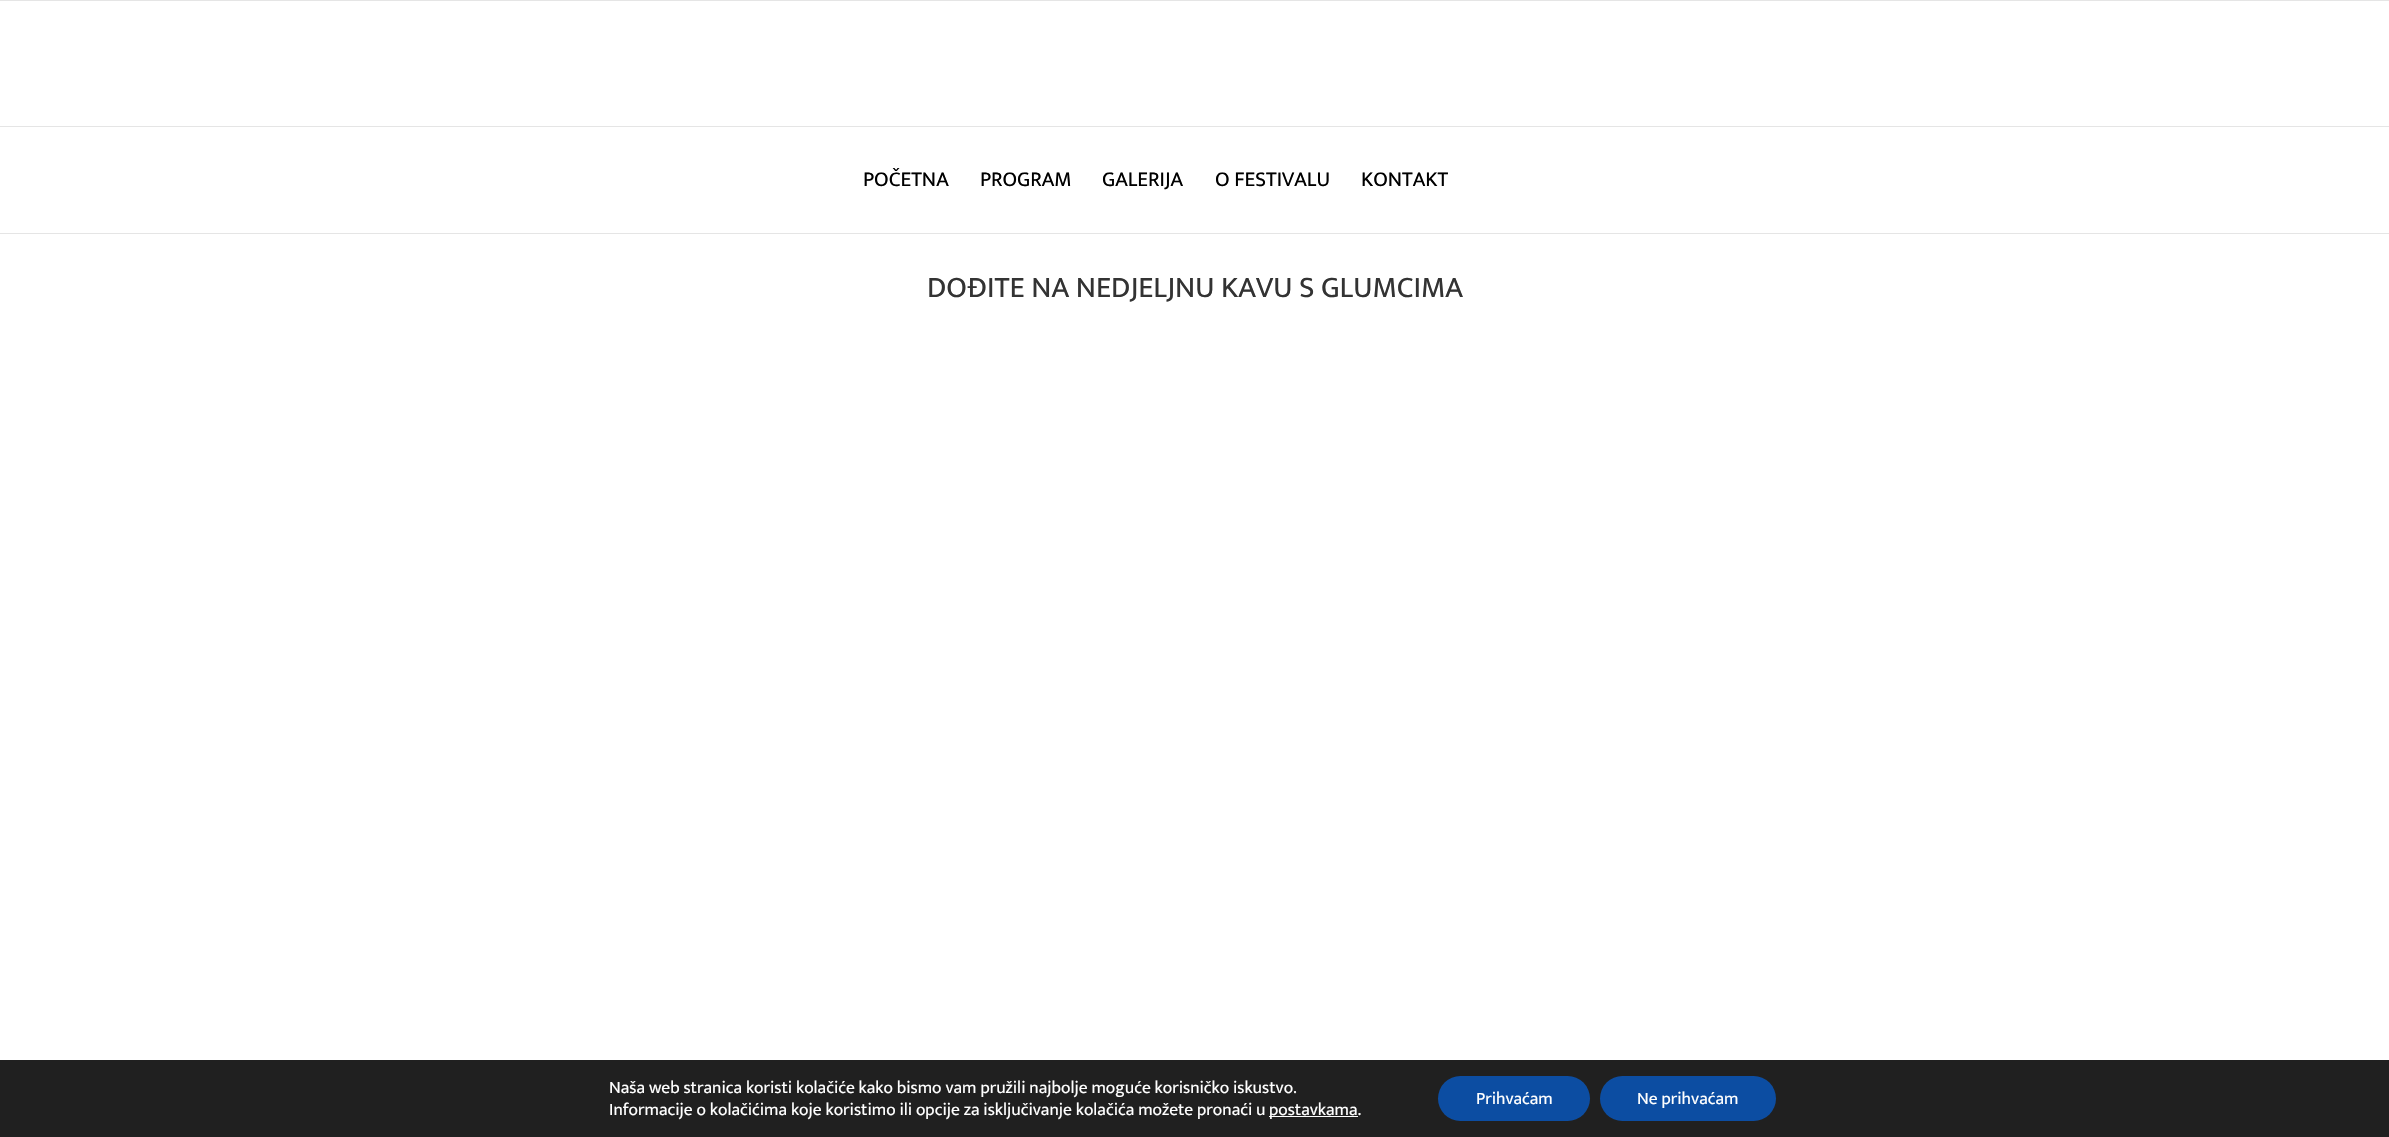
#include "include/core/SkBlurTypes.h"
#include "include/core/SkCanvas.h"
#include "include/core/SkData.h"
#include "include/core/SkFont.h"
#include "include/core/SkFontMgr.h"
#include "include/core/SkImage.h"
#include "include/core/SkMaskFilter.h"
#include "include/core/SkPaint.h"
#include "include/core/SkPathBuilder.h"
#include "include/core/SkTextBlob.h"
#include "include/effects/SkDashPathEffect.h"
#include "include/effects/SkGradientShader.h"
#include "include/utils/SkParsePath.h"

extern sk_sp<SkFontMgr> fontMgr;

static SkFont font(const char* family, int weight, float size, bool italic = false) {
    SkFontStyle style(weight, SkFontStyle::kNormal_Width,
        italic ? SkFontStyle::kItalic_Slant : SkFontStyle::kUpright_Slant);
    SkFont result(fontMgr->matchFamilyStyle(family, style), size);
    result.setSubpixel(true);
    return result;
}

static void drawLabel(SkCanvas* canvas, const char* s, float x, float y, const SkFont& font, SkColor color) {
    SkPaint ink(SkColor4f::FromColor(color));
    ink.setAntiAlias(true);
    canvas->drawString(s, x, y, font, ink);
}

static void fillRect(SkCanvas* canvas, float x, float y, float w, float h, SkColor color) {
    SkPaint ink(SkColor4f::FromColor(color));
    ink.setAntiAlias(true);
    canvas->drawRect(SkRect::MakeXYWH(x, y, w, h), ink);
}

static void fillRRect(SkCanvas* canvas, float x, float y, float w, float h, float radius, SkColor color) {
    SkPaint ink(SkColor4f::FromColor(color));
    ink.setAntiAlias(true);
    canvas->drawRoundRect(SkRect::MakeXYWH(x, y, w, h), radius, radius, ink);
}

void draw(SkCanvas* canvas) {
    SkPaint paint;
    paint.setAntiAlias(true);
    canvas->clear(0xFFFFFFFF);
    fillRect(canvas, 0, 0, 2389, 1, 0xFFE5E5E5);
    fillRect(canvas, 0, 126, 2389, 1, 0xFFE5E5E5);
    fillRect(canvas, 0, 233, 2389, 1, 0xFFE5E5E5);
    SkFont font1 = font("Mukta Mahee", 400, 21.25f);
    drawLabel(canvas, "POČETNA", 863, 186, font1, 0xFF000000);
    drawLabel(canvas, "PROGRAM", 980, 186, font1, 0xFF000000);
    drawLabel(canvas, "GALERIJA", 1102, 186, font1, 0xFF000000);
    drawLabel(canvas, "O FESTIVALU", 1215, 186, font1, 0xFF000000);
    drawLabel(canvas, "KONTAKT", 1361, 186, font1, 0xFF000000);
    SkFont font2 = font("Mukta Mahee", 400, 30);
    drawLabel(canvas, "DOĐITE NA NEDJELJNU KAVU S GLUMCIMA", 927, 297, font2, 0xFF333333);
    fillRect(canvas, 0, 1060, 2389, 77, 0xFF202020);
    SkFont font3 = font("Mukta Mahee", 400, 17.5f);
    drawLabel(canvas, "Naša web stranica koristi kolačiće kako bismo vam pružili najbolje moguće korisničko iskustvo.", 609, 1093, font3, 0xFFFFFFFF);
    drawLabel(canvas, "Informacije o kolačićima koje koristimo ili opcije za isključivanje kolačića možete pronaći u", 609, 1115, font3, 0xFFFFFFFF);
    fillRect(canvas, 1269, 1116, 89, 1, 0xFFFFFFFF);
    drawLabel(canvas, "postavkama.", 1269, 1115, font3, 0xFFFFFFFF);
    fillRRect(canvas, 1438, 1076, 152, 45, 22.5f, 0xFF0C4DA2);
    drawLabel(canvas, "Prihvaćam", 1476, 1104, font3, 0xFFFFFFFF);
    fillRRect(canvas, 1600, 1076, 176, 45, 22.5f, 0xFF0C4DA2);
    drawLabel(canvas, "Ne prihvaćam", 1637, 1104, font3, 0xFFFFFFFF);
}
